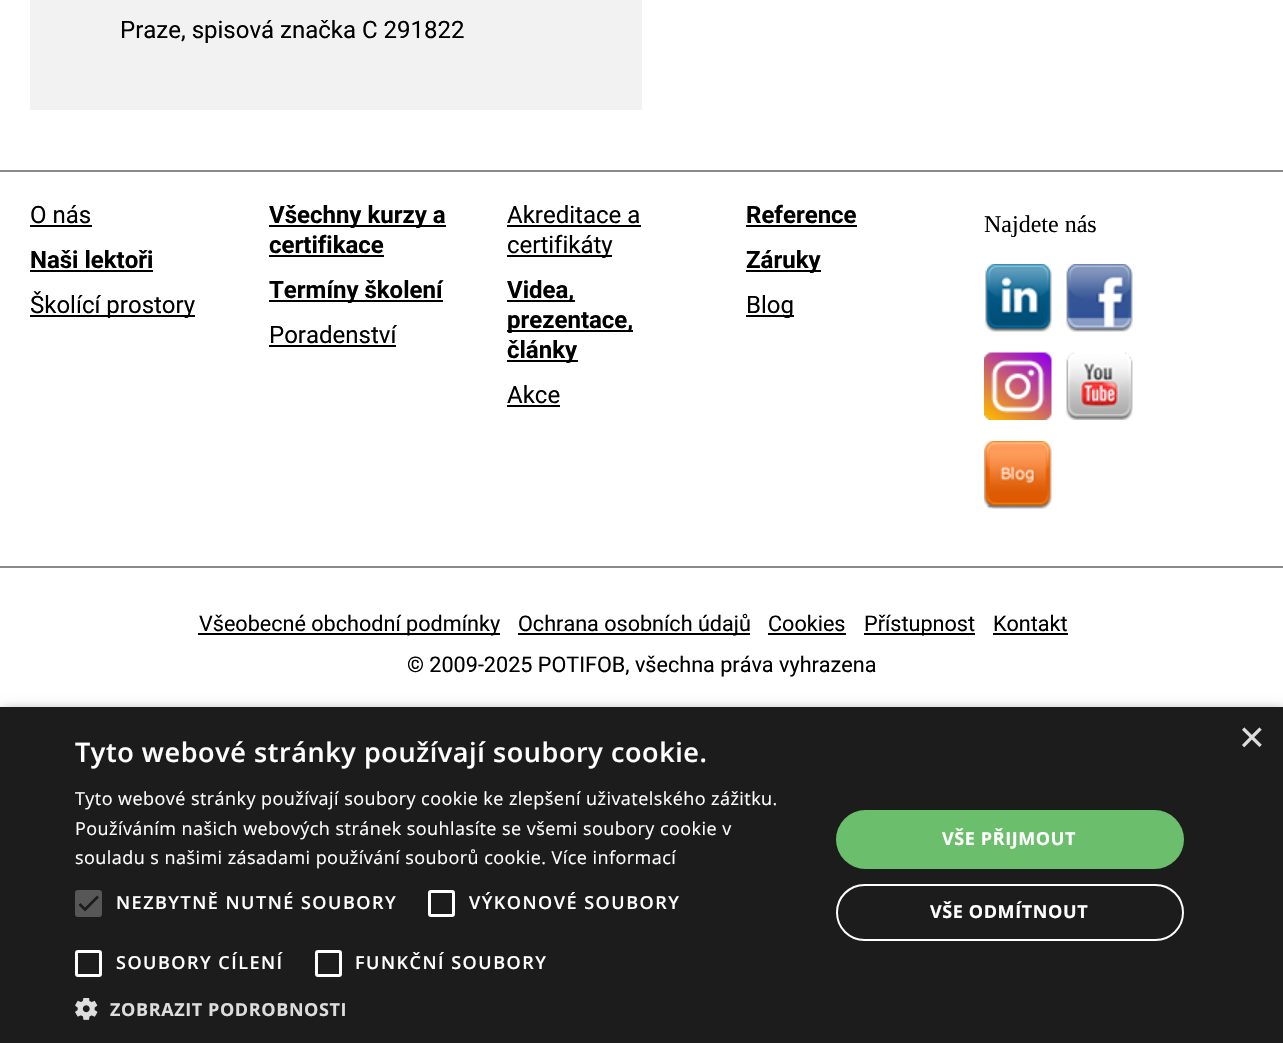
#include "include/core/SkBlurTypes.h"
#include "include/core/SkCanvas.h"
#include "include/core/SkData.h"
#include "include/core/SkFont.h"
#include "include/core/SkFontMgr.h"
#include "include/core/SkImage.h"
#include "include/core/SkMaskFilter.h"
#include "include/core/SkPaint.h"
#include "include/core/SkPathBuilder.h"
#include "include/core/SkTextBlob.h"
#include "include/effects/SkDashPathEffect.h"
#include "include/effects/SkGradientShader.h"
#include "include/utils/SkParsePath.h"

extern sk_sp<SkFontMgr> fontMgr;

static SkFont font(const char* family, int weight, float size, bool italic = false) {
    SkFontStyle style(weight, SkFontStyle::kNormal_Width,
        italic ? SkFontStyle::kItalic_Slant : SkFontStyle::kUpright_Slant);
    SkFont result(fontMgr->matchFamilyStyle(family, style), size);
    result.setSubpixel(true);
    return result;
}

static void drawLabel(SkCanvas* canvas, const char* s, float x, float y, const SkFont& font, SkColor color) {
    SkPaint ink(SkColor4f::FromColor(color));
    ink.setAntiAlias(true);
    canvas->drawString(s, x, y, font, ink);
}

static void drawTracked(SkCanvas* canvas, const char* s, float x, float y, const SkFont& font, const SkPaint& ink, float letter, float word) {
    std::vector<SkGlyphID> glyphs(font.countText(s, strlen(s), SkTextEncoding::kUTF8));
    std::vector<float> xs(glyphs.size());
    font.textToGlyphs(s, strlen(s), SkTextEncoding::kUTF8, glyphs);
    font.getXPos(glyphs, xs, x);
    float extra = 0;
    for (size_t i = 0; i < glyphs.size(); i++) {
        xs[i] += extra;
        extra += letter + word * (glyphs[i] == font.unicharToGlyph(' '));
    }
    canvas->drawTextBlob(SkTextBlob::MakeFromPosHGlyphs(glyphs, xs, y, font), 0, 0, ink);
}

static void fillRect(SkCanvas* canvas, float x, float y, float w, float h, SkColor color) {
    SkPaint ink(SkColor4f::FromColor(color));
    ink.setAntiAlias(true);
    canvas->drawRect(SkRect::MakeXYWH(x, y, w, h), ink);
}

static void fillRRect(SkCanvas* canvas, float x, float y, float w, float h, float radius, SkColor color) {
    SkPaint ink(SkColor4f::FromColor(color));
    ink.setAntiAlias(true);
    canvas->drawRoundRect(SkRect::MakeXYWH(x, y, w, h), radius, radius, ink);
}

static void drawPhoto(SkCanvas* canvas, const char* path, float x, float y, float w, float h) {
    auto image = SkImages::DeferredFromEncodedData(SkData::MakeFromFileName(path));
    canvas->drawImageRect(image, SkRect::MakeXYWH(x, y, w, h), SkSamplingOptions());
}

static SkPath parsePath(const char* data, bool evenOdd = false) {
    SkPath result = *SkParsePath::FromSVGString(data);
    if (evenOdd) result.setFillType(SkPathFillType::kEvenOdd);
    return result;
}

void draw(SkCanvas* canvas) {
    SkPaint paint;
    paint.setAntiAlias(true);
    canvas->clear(0xFFFFFFFF);
    fillRect(canvas, 0, 170, 1283, 2, 0xFF8A8A8A);
    fillRect(canvas, 30, 0, 612, 110, 0xFFF2F2F2);
    SkFont font1 = font("Roboto", 400, 24);
    drawLabel(canvas, "Praze, spisová značka C 291822", 120, 38, font1, 0xFF000000);
    drawLabel(canvas, "O nás", 30, 223, font1, 0xFF000000);
    fillRect(canvas, 30, 225, 62, 2, 0xFF000000);
    SkFont font2 = font("Roboto", 700, 24);
    drawLabel(canvas, "Naši lektoři", 30, 268, font2, 0xFF000000);
    fillRect(canvas, 30, 270, 123, 2, 0xFF000000);
    fillRect(canvas, 30, 315, 165, 2, 0xFF000000);
    drawLabel(canvas, "Školící prostory", 30, 313, font1, 0xFF000000);
    fillRect(canvas, 269, 225, 177, 2, 0xFF000000);
    drawLabel(canvas, "Všechny kurzy a", 269, 223, font2, 0xFF000000);
    drawLabel(canvas, "certifikace", 269, 253, font2, 0xFF000000);
    fillRect(canvas, 269, 255, 115, 2, 0xFF000000);
    fillRect(canvas, 269, 300, 174, 2, 0xFF000000);
    drawLabel(canvas, "Termíny školení", 269, 298, font2, 0xFF000000);
    drawLabel(canvas, "Poradenství", 269, 343, font1, 0xFF000000);
    fillRect(canvas, 269, 345, 127, 2, 0xFF000000);
    drawLabel(canvas, "Akreditace a", 507, 223, font1, 0xFF000000);
    fillRect(canvas, 507, 225, 134, 2, 0xFF000000);
    fillRect(canvas, 507, 255, 105, 2, 0xFF000000);
    drawLabel(canvas, "certifikáty", 507, 253, font1, 0xFF000000);
    fillRect(canvas, 507, 300, 68, 2, 0xFF000000);
    drawLabel(canvas, "Videa,", 507, 298, font2, 0xFF000000);
    fillRect(canvas, 507, 330, 126, 2, 0xFF000000);
    drawLabel(canvas, "prezentace,", 507, 328, font2, 0xFF000000);
    fillRect(canvas, 507, 360, 71, 2, 0xFF000000);
    drawLabel(canvas, "články", 507, 358, font2, 0xFF000000);
    drawLabel(canvas, "Akce", 507, 403, font1, 0xFF000000);
    fillRect(canvas, 507, 405, 53, 2, 0xFF000000);
    drawLabel(canvas, "Reference", 746, 223, font2, 0xFF000000);
    fillRect(canvas, 746, 225, 111, 2, 0xFF000000);
    fillRect(canvas, 746, 270, 75, 2, 0xFF000000);
    drawLabel(canvas, "Záruky", 746, 268, font2, 0xFF000000);
    fillRect(canvas, 746, 315, 48, 2, 0xFF000000);
    drawLabel(canvas, "Blog", 746, 313, font1, 0xFF000000);
    SkFont font3 = font("Liberation Serif", 400, 24);
    drawLabel(canvas, "Najdete nás", 984, 232, font3, 0xFF000000);
    drawPhoto(canvas, "assets/img1.png", 984, 264, 68, 68);
    drawPhoto(canvas, "assets/img2.png", 1065, 264, 68, 68);
    drawPhoto(canvas, "assets/img3.png", 984, 352, 68, 68);
    drawPhoto(canvas, "assets/img4.png", 1065, 352, 68, 68);
    drawPhoto(canvas, "assets/img5.png", 984, 441, 68, 68);
    fillRect(canvas, 0, 566, 1283, 2, 0xFF8A8A8A);
    fillRect(canvas, 198, 633, 302, 2, 0xFF000000);
    SkFont font4 = font("Roboto", 400, 21.6f);
    drawLabel(canvas, "Všeobecné obchodní podmínky", 199, 631, font4, 0xFF000000);
    fillRect(canvas, 518, 633, 232, 2, 0xFF000000);
    drawLabel(canvas, "Ochrana osobních údajů", 518, 631, font4, 0xFF000000);
    drawLabel(canvas, "Cookies", 768, 631, font4, 0xFF000000);
    fillRect(canvas, 768, 633, 78, 2, 0xFF000000);
    fillRect(canvas, 864, 633, 111, 2, 0xFF000000);
    drawLabel(canvas, "Přístupnost", 864, 631, font4, 0xFF000000);
    drawLabel(canvas, "Kontakt", 993, 631, font4, 0xFF000000);
    fillRect(canvas, 993, 633, 75, 2, 0xFF000000);
    drawLabel(canvas, "© 2009-2025 POTIFOB, všechna práva vyhrazena", 407, 672, font4, 0xFF000000);
    paint.setColor(0x59000000);
    paint.setMaskFilter(SkMaskFilter::MakeBlur(kNormal_SkBlurStyle, 6));
    canvas->drawRect(SkRect::MakeXYWH(2, 710, 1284, 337), paint);
    paint.setMaskFilter(nullptr);
    fillRect(canvas, 0, 707, 1283, 336, 0xFF1C1C1C);
    SkFont font5 = font("Liberation Sans", 400, 44);
    drawLabel(canvas, "×", 1239, 752, font5, 0xFFDDDDDD);
    SkFont font6 = font("Open Sans", 600, 27);
    paint.setColor(0xFFFFFFFF);
    drawTracked(canvas, "Tyto webové stránky používají soubory cookie.", 75, 762, font6, paint, 0.6f, 0);
    SkFont font7 = font("Open Sans", 400, 18);
    drawTracked(canvas, "Tyto webové stránky používají soubory cookie ke zlepšení uživatelského zážitku.", 75, 805, font7, paint, 0.45f, 0);
    drawTracked(canvas, "Používáním našich webových stránek souhlasíte se všemi soubory cookie v", 75, 835, font7, paint, 0.45f, 0);
    drawTracked(canvas, "souladu s našimi zásadami používání souborů cookie. Více informací", 75, 864, font7, paint, 0.45f, 0);
    fillRRect(canvas, 75, 890, 27, 27, 3, 0xFF575757);
    paint.setStroke(true);
    paint.setStrokeWidth(2.7f);
    paint.setColor(0xFF1C1C1C);
    canvas->drawPath(parsePath("M79.5 904L85 909.5L98 896.5"), paint);
    SkFont font8 = font("Open Sans", 600, 18);
    paint.setStroke(false);
    paint.setColor(0xFFFFFFFF);
    drawTracked(canvas, "NEZBYTNĚ NUTNÉ SOUBORY", 116, 909, font8, paint, 1.5f, 0);
    paint.setStroke(true);
    paint.setStrokeWidth(3);
    canvas->drawRoundRect(SkRect::MakeXYWH(429.5f, 891.5f, 24, 24), 1.5f, 1.5f, paint);
    paint.setStroke(false);
    drawTracked(canvas, "VÝKONOVÉ SOUBORY", 469, 909, font8, paint, 1.5f, 0);
    paint.setStroke(true);
    canvas->drawRoundRect(SkRect::MakeXYWH(76.5f, 951.5f, 24, 24), 1.5f, 1.5f, paint);
    paint.setStroke(false);
    drawTracked(canvas, "SOUBORY CÍLENÍ", 116, 969, font8, paint, 1.5f, 0);
    paint.setStroke(true);
    canvas->drawRoundRect(SkRect::MakeXYWH(316.5f, 951.5f, 24, 24), 1.5f, 1.5f, paint);
    paint.setStroke(false);
    drawTracked(canvas, "FUNKČNÍ SOUBORY", 355, 969, font8, paint, 1.5f, 0);
    drawPhoto(canvas, "assets/img6.png", 75, 998, 23, 22);
    SkFont font9 = font("Open Sans", 700, 18);
    paint.setColor(0xFFDDDDDD);
    drawTracked(canvas, "ZOBRAZIT PODROBNOSTI", 110, 1016, font9, paint, 0.6f, 0);
    fillRRect(canvas, 836, 810, 348, 59, 29.5f, 0xFF6BBE6B);
    paint.setColor(0xFFFFFFFF);
    drawTracked(canvas, "VŠE PŘIJMOUT", 942, 845, font9, paint, 0.6f, 0);
    paint.setStroke(true);
    paint.setStrokeWidth(2);
    canvas->drawRoundRect(SkRect::MakeXYWH(837, 885, 346, 55), 27.5f, 27.5f, paint);
    paint.setStroke(false);
    drawTracked(canvas, "VŠE ODMÍTNOUT", 930, 918, font9, paint, 0.6f, 0);
}
